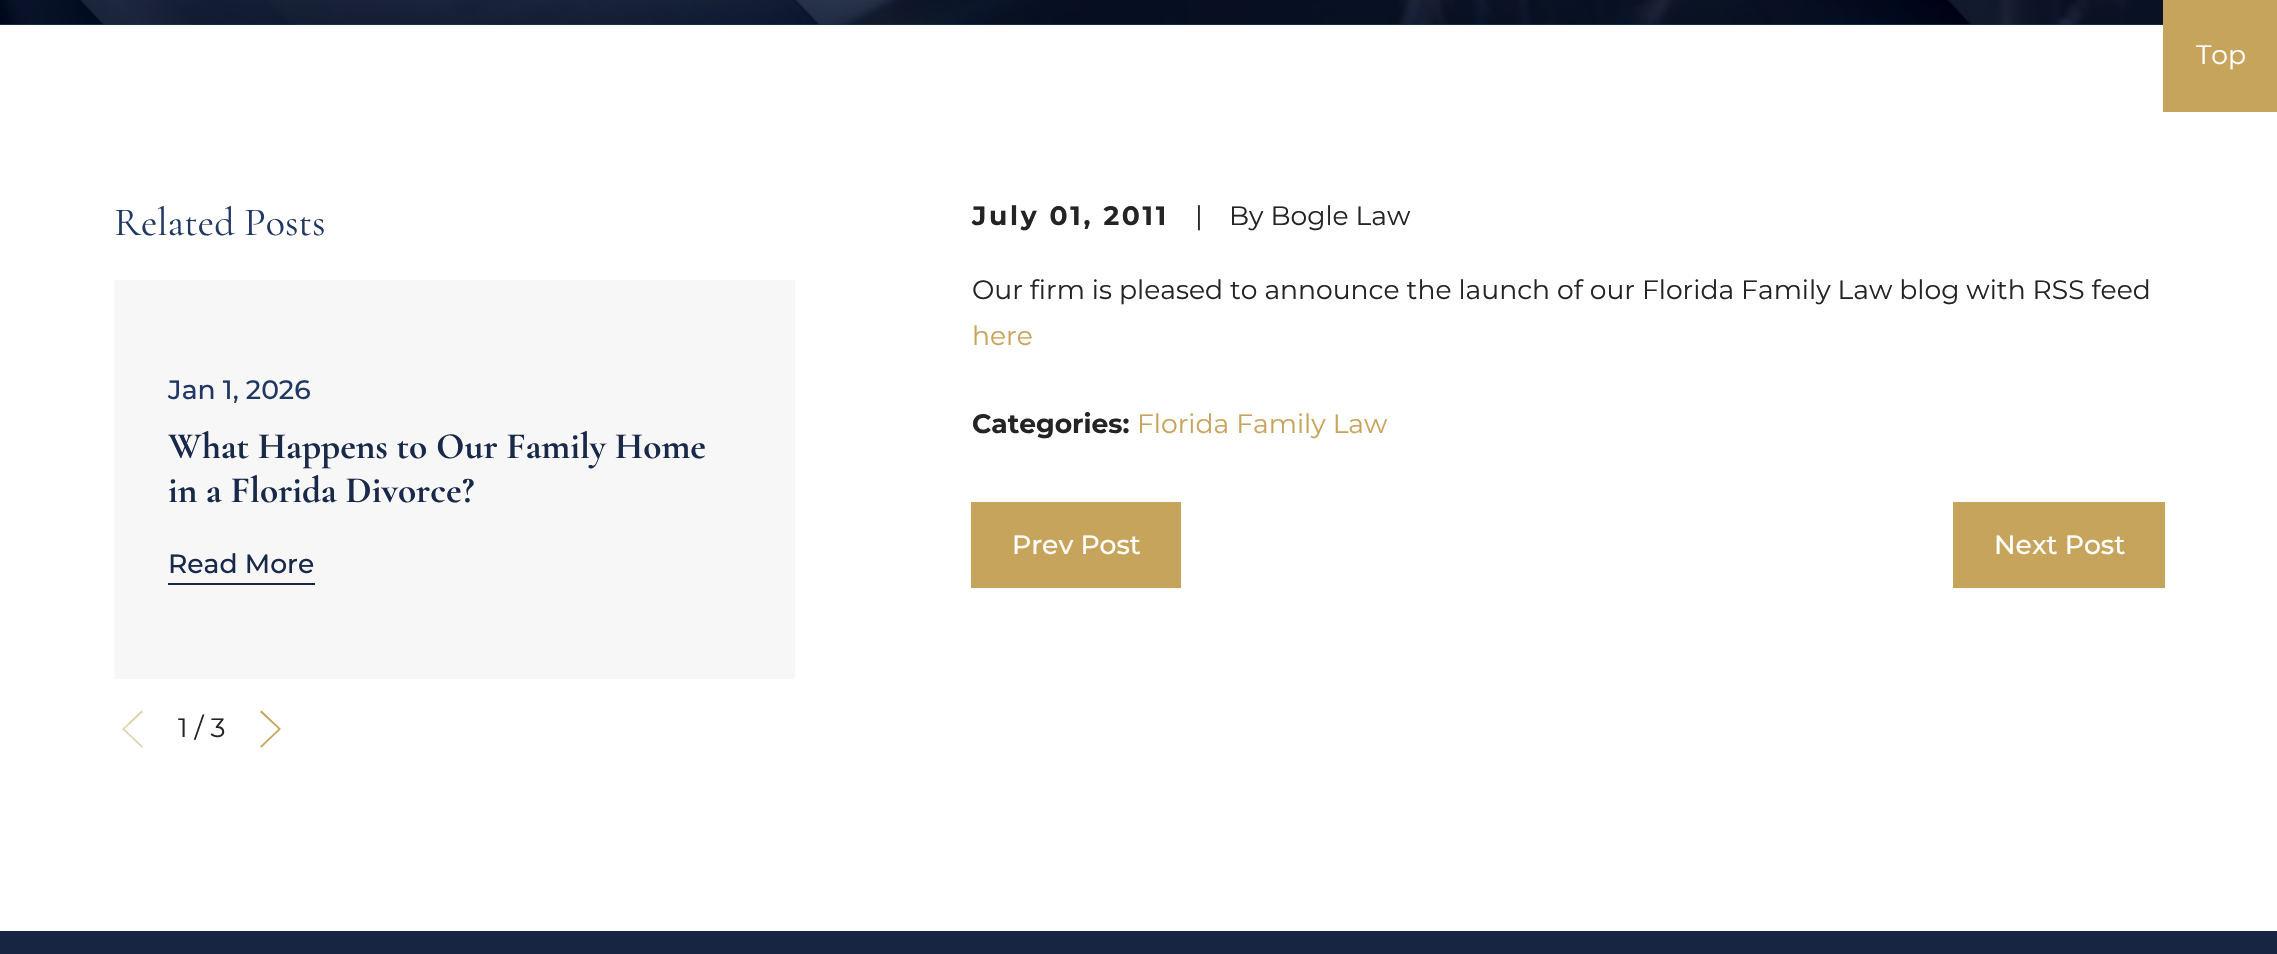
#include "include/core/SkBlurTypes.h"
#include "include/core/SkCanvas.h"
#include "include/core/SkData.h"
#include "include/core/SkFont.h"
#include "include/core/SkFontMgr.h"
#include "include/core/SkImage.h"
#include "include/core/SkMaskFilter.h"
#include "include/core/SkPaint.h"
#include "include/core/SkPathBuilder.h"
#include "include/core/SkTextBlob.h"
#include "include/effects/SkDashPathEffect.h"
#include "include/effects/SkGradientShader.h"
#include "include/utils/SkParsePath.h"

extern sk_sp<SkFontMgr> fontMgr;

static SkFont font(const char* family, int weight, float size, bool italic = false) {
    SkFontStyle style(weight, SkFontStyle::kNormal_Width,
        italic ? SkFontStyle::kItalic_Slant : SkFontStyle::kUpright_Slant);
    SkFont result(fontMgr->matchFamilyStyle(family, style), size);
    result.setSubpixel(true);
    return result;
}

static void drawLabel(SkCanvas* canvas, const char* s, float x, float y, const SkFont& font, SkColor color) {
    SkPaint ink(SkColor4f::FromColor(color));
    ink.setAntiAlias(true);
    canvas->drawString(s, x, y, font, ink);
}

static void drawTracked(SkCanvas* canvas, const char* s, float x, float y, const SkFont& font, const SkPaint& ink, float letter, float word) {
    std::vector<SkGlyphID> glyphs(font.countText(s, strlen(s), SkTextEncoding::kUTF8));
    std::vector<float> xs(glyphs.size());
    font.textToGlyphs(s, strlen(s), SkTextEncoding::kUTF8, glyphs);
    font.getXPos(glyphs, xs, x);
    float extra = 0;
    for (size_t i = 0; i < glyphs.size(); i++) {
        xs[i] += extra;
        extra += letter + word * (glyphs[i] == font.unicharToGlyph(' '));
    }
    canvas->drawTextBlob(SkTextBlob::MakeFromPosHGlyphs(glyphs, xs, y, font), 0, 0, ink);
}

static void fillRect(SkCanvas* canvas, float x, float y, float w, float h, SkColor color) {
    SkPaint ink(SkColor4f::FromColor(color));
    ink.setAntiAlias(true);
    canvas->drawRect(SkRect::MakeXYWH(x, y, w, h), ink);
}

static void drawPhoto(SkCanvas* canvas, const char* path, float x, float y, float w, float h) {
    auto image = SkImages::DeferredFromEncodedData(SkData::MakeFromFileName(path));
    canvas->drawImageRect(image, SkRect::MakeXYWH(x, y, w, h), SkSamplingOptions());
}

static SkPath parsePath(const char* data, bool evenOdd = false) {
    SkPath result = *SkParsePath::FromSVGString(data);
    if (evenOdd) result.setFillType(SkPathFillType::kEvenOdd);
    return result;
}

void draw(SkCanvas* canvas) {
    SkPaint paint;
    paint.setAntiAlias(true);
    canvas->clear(0xFFFFFFFF);
    fillRect(canvas, 2163, 0, 114, 112, 0xFFC7A45B);
    SkFont font1 = font("Montserrat", 400, 26.6f);
    drawLabel(canvas, "Top", 2196, 64, font1, 0xFFFFFFFF);
    fillRect(canvas, 0, 24, 2163, 1, 0xFF213865);
    drawPhoto(canvas, "assets/img1.png", 0, 0, 2163, 25);
    {
        const SkColor colors[] = {0x1A000000, 0x00000000, 0x1A000000};
        const float stops[] = {0, 0.5f, 1};
        const SkPoint ends[] = {{1139, 25}, {1139, -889}};
        paint.setShader(SkGradientShader::MakeLinear(ends, colors, stops, 3, SkTileMode::kClamp));
        paint.setAlpha(255);
    }
    canvas->drawRect(SkRect::MakeXYWH(0, 0, 2163, 25), paint);
    SkFont font2 = font("Cormorant Garamond", 400, 40);
    drawLabel(canvas, "Related Posts", 114, 235, font2, 0xFF213865);
    fillRect(canvas, 114, 280, 681, 399, 0xFFF7F7F7);
    SkFont font3 = font("Montserrat", 500, 26.6f);
    drawLabel(canvas, "Jan 1, 2026", 168, 399, font3, 0xFF213865);
    SkFont font4 = font("Cormorant Garamond", 700, 37.25f);
    drawLabel(canvas, "What Happens to Our Family Home", 168, 458, font4, 0xFF19294A);
    drawLabel(canvas, "in a Florida Divorce?", 168, 502, font4, 0xFF19294A);
    drawLabel(canvas, "Read More", 168, 573, font3, 0xFF19294A);
    fillRect(canvas, 168, 583, 147, 2, 0xFF19294A);
    paint.setShader(nullptr);
    paint.setColor(0xFFE3D2AD);
    canvas->drawPath(parsePath("M141.5 747.5L143 746.5L124.5 729L143 712L141.5 710.5L122 729Z"), paint);
    drawLabel(canvas, "1 / 3", 178, 737, font1, 0xFF242424);
    paint.setColor(0xFFC7A45B);
    canvas->drawPath(parsePath("M261.5 747.5L260 746.5L278.5 729L260 712L261.5 710.5L281 729Z"), paint);
    SkFont font5 = font("Montserrat", 700, 26.6f);
    paint.setColor(0xFF242424);
    drawTracked(canvas, "July 01, 2011", 972, 225, font5, paint, 2.7f, 0);
    drawLabel(canvas, "|", 1195, 225, font1, 0xFF242424);
    drawLabel(canvas, "By Bogle Law", 1229, 225, font1, 0xFF242424);
    drawLabel(canvas, "Our firm is pleased to announce the launch of our Florida Family Law blog with RSS feed", 972, 299, font1, 0xFF242424);
    drawLabel(canvas, "here", 972, 345, font1, 0xFFC7A45B);
    drawLabel(canvas, "Categories:", 972, 433, font5, 0xFF242424);
    drawLabel(canvas, "Florida Family Law", 1137, 433, font1, 0xFFC7A45B);
    fillRect(canvas, 971, 502, 210, 86, 0xFFC7A45B);
    drawLabel(canvas, "Prev Post", 1012, 554, font3, 0xFFFFFFFF);
    fillRect(canvas, 1953, 502, 212, 86, 0xFFC7A45B);
    drawLabel(canvas, "Next Post", 1994, 554, font3, 0xFFFFFFFF);
    {
        const SkColor colors[] = {0xFF172543, 0xFF19294A, 0xFF172543};
        const float stops[] = {0, 0.5f, 1};
        const SkPoint ends[] = {{1139, 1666}, {1139, 931}};
        paint.setShader(SkGradientShader::MakeLinear(ends, colors, stops, 3, SkTileMode::kClamp));
        paint.setAlpha(255);
    }
    canvas->drawRect(SkRect::MakeXYWH(0, 931, 2277, 23), paint);
}
